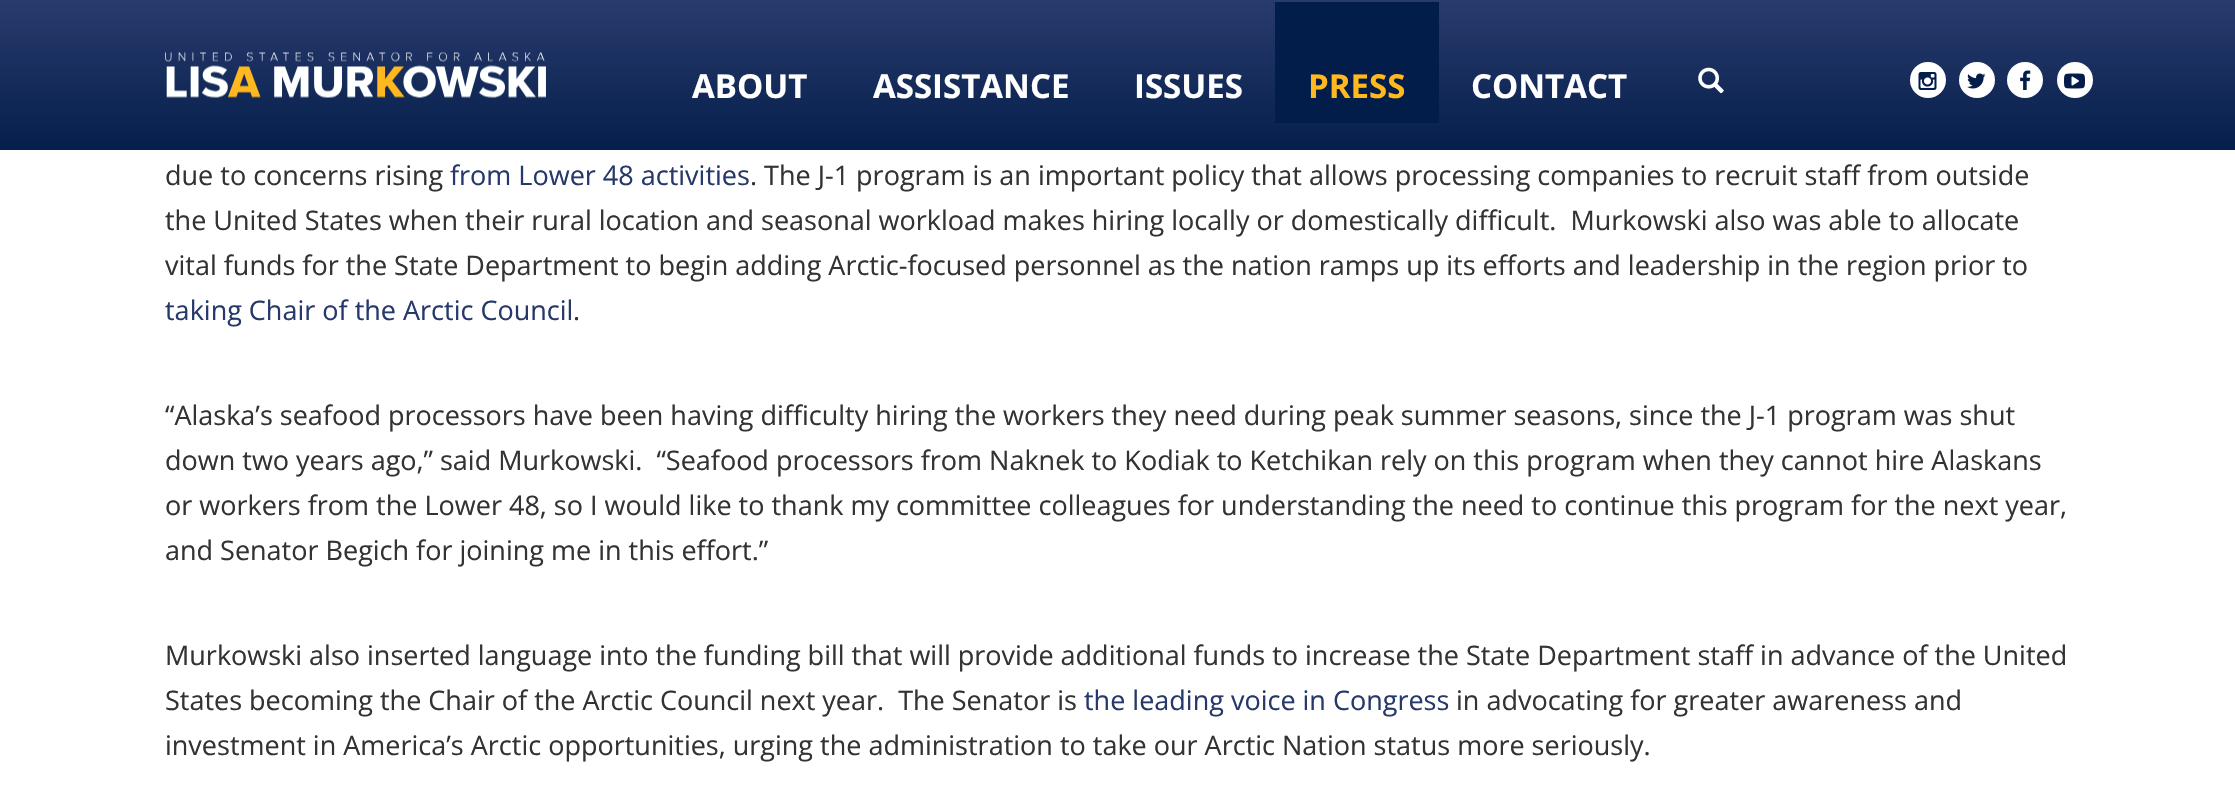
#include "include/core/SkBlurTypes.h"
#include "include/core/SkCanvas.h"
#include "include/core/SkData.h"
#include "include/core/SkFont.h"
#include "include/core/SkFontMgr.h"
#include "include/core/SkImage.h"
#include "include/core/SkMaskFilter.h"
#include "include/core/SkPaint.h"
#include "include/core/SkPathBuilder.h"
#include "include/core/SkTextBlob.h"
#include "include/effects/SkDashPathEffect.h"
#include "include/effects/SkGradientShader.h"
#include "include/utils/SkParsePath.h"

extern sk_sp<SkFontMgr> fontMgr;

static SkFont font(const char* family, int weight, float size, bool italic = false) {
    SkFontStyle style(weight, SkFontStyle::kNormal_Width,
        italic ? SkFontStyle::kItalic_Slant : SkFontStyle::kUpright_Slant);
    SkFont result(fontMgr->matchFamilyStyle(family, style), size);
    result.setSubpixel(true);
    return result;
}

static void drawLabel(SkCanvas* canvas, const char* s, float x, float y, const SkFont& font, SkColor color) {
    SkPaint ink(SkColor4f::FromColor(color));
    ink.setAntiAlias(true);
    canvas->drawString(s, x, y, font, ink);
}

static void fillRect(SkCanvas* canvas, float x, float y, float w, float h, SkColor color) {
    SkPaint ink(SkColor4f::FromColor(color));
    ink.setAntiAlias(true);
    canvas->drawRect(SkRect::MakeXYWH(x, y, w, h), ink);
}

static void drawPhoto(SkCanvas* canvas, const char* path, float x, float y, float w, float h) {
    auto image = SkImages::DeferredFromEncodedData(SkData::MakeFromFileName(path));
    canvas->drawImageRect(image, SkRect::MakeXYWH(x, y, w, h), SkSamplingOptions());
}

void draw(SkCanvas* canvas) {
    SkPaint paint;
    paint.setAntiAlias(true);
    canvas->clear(0xFFFFFFFF);
    {
        const SkColor colors[] = {0xFF293B6D, 0xFF051F4B};
        const float stops[] = {0, 1};
        const SkPoint ends[] = {{1118, 0}, {1118, 150}};
        paint.setShader(SkGradientShader::MakeLinear(ends, colors, stops, 2, SkTileMode::kClamp));
        paint.setAlpha(255);
    }
    canvas->drawRect(SkRect::MakeXYWH(0, 0, 2235, 150), paint);
    drawPhoto(canvas, "assets/img1.png", 165, 52, 381, 46);
    SkFont font1 = font("Open Sans", 700, 33);
    drawLabel(canvas, "ABOUT", 692, 98, font1, 0xFFFFFFFF);
    drawLabel(canvas, "ASSISTANCE", 873, 98, font1, 0xFFFFFFFF);
    drawLabel(canvas, "ISSUES", 1134, 98, font1, 0xFFFFFFFF);
    fillRect(canvas, 1275, 2, 164, 121, 0xFF021D49);
    drawLabel(canvas, "PRESS", 1308, 98, font1, 0xFFFFB81D);
    drawLabel(canvas, "CONTACT", 1471, 98, font1, 0xFFFFFFFF);
    drawPhoto(canvas, "assets/img2.png", 1698, 67, 26, 27);
    paint.setShader(nullptr);
    paint.setColor(0xFFFFFFFF);
    canvas->drawCircle(1928, 80, 18, paint);
    drawPhoto(canvas, "assets/img3.png", 1918, 72, 19, 18);
    canvas->drawCircle(1977, 80, 18, paint);
    drawPhoto(canvas, "assets/img4.png", 1967, 73, 19, 16);
    canvas->drawCircle(2025, 80, 18, paint);
    drawPhoto(canvas, "assets/img5.png", 2020, 70, 11, 20);
    canvas->drawCircle(2075, 80, 18, paint);
    drawPhoto(canvas, "assets/img6.png", 2064, 73, 21, 16);
    SkFont font2 = font("Open Sans", 400, 27);
    drawLabel(canvas, "due to concerns rising", 165, 185, font2, 0xFF333333);
    drawLabel(canvas, "from Lower 48 activities", 450, 185, font2, 0xFF26396A);
    drawLabel(canvas, ". The J-1 program is an important policy that allows processing companies to recruit staff from outside", 750, 185, font2, 0xFF333333);
    drawLabel(canvas, "the United States when their rural location and seasonal workload makes hiring locally or domestically difficult.  Murkowski also was able to allocate", 165, 230, font2, 0xFF333333);
    drawLabel(canvas, "vital funds for the State Department to begin adding Arctic-focused personnel as the nation ramps up its efforts and leadership in the region prior to", 165, 275, font2, 0xFF333333);
    drawLabel(canvas, "taking Chair of the Arctic Council", 165, 320, font2, 0xFF26396A);
    drawLabel(canvas, ".", 573, 320, font2, 0xFF333333);
    drawLabel(canvas, "“Alaska’s seafood processors have been having difficulty hiring the workers they need during peak summer seasons, since the J-1 program was shut", 165, 425, font2, 0xFF333333);
    drawLabel(canvas, "down two years ago,” said Murkowski.  “Seafood processors from Naknek to Kodiak to Ketchikan rely on this program when they cannot hire Alaskans", 165, 470, font2, 0xFF333333);
    drawLabel(canvas, "or workers from the Lower 48, so I would like to thank my committee colleagues for understanding the need to continue this program for the next year,", 165, 515, font2, 0xFF333333);
    drawLabel(canvas, "and Senator Begich for joining me in this effort.”", 165, 560, font2, 0xFF333333);
    drawLabel(canvas, "Murkowski also inserted language into the funding bill that will provide additional funds to increase the State Department staff in advance of the United", 165, 665, font2, 0xFF333333);
    drawLabel(canvas, "States becoming the Chair of the Arctic Council next year.  The Senator is", 165, 710, font2, 0xFF333333);
    drawLabel(canvas, "the leading voice in Congress", 1084, 710, font2, 0xFF26396A);
    drawLabel(canvas, "in advocating for greater awareness and", 1456, 710, font2, 0xFF333333);
    drawLabel(canvas, "investment in America’s Arctic opportunities, urging the administration to take our Arctic Nation status more seriously.", 165, 755, font2, 0xFF333333);
}
